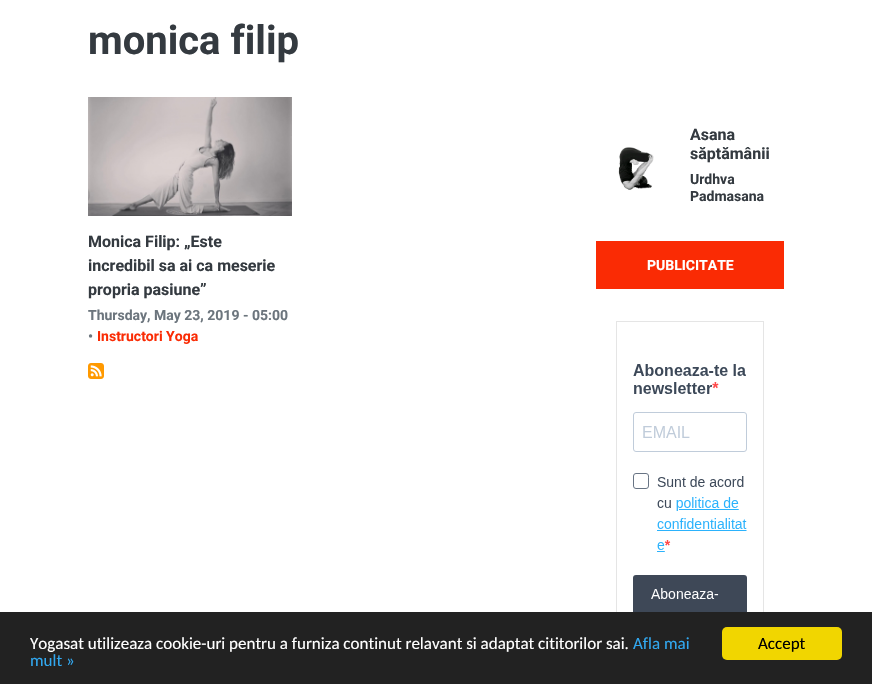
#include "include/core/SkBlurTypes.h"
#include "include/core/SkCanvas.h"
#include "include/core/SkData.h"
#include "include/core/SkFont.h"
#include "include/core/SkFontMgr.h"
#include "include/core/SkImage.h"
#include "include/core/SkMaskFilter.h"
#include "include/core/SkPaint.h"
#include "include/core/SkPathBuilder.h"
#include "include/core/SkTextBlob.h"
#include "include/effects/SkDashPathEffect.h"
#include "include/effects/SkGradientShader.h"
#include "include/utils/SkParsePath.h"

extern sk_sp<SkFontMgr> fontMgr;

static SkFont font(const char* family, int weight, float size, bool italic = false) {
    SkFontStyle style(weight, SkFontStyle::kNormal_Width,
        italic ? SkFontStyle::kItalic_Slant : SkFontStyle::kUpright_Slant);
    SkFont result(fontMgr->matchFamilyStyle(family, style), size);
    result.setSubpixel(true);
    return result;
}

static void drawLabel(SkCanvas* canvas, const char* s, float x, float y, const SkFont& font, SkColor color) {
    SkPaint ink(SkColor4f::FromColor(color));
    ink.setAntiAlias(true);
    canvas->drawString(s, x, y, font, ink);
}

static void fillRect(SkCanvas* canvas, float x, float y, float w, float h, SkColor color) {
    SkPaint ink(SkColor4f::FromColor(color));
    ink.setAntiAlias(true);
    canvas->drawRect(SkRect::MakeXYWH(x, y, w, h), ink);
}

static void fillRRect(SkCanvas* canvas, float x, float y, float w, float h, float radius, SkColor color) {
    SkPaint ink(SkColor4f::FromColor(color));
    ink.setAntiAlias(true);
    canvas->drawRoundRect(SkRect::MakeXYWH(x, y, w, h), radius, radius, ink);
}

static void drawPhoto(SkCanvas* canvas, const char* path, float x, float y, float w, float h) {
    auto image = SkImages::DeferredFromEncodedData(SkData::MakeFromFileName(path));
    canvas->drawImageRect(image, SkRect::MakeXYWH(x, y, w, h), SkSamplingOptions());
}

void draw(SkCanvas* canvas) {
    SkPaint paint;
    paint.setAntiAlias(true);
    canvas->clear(0xFFFFFFFF);
    SkFont font1 = font("Roboto", 700, 40);
    drawLabel(canvas, "monica filip", 88, 54, font1, 0xFF343A40);
    drawPhoto(canvas, "assets/img1.png", 596, 146, 78, 46);
    SkFont font2 = font("Roboto", 700, 16);
    drawLabel(canvas, "Asana", 690, 140, font2, 0xFF343A40);
    drawLabel(canvas, "săptămânii", 690, 159, font2, 0xFF343A40);
    SkFont font3 = font("Roboto", 700, 14);
    drawLabel(canvas, "Urdhva", 690, 184, font3, 0xFF343A40);
    drawLabel(canvas, "Padmasana", 690, 201, font3, 0xFF343A40);
    fillRect(canvas, 596, 241, 188, 48, 0xFFFA2B04);
    drawLabel(canvas, "PUBLICITATE", 647, 270, font3, 0xFFFFFFFF);
    drawPhoto(canvas, "assets/img2.png", 616, 321, 148, 291);
    drawPhoto(canvas, "assets/img3.png", 88, 97, 204, 119);
    drawLabel(canvas, "Monica Filip: „Este", 88, 247, font2, 0xFF343A40);
    drawLabel(canvas, "incredibil sa ai ca meserie", 88, 271, font2, 0xFF343A40);
    drawLabel(canvas, "propria pasiune”", 88, 295, font2, 0xFF343A40);
    drawLabel(canvas, "Thursday, May 23, 2019 - 05:00", 88, 320, font3, 0xFF6C757D);
    drawLabel(canvas, "•", 88, 341, font3, 0xFF6C757D);
    drawLabel(canvas, "Instructori Yoga", 97, 341, font3, 0xFFFA2B04);
    drawPhoto(canvas, "assets/img4.png", 88, 363, 16, 16);
    fillRect(canvas, 0, 612, 872, 72, 0xFF222222);
    SkFont font4 = font("Carlito", 400, 17);
    drawLabel(canvas, "Yogasat utilizeaza cookie-uri pentru a furniza continut relavant si adaptat cititorilor sai.", 30, 649, font4, 0xFFFFFFFF);
    drawLabel(canvas, "Afla mai", 633, 649, font4, 0xFF31A8F0);
    drawLabel(canvas, "mult »", 30, 666, font4, 0xFF31A8F0);
    fillRRect(canvas, 722, 627, 120, 33, 5, 0xFFF1D600);
    drawLabel(canvas, "Accept", 758, 649, font4, 0xFF000000);
}
